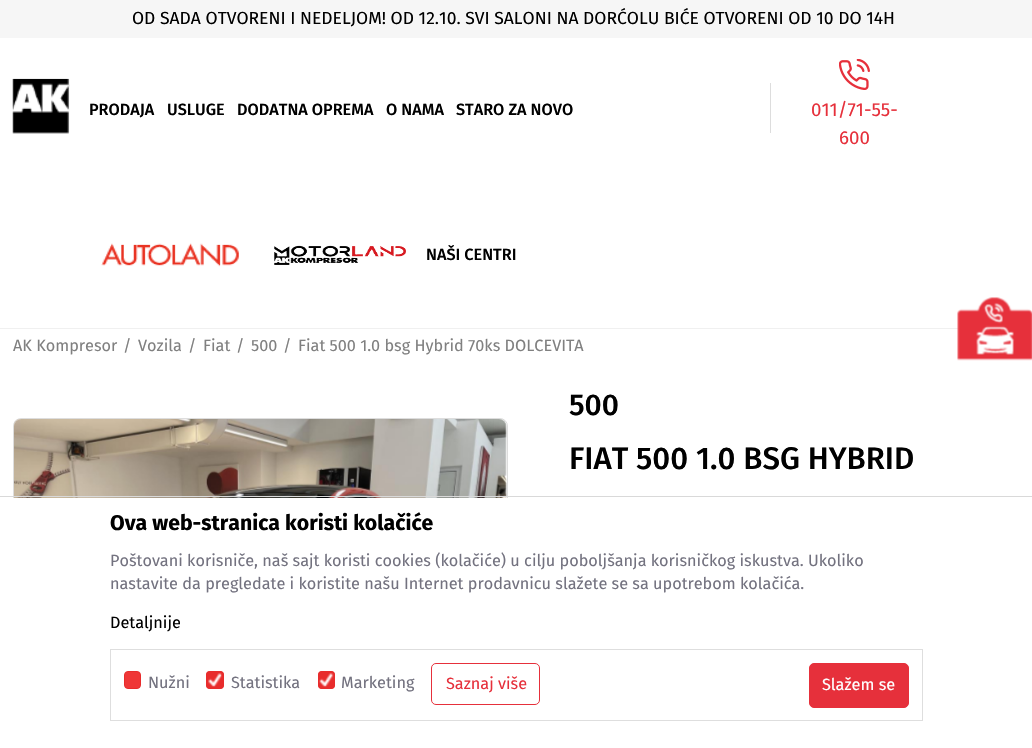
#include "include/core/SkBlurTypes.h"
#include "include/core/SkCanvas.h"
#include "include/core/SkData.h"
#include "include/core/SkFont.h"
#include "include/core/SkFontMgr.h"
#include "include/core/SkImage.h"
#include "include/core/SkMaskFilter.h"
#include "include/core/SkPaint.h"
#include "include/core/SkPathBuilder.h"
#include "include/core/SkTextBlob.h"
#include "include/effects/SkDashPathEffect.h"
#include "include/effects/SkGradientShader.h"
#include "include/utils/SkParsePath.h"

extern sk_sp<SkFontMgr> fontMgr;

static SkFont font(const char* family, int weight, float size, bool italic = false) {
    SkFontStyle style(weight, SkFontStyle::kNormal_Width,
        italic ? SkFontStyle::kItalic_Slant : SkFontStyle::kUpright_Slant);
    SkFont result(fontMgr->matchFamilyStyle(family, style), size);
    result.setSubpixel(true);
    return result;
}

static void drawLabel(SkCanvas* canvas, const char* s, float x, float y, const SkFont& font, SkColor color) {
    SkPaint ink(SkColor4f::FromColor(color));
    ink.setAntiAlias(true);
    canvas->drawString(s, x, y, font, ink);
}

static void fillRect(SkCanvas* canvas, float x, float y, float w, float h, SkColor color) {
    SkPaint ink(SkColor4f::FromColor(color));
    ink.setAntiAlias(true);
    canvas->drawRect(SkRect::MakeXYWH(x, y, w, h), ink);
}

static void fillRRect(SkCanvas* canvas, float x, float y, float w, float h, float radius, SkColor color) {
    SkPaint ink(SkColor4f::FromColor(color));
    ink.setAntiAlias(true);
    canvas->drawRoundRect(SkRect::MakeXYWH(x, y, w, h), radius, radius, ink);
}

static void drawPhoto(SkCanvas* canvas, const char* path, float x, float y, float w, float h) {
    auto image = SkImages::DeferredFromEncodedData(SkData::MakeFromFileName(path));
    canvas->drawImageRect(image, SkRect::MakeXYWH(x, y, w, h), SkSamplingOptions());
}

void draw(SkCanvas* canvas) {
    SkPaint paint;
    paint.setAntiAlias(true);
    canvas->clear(0xFFFFFFFF);
    fillRect(canvas, 0, 0, 1032, 38, 0xFFF6F6F6);
    SkFont font1 = font("Fira Sans", 400, 17.5f);
    drawLabel(canvas, "OD SADA OTVORENI I NEDELJOM! OD 12.10. SVI SALONI NA DORĆOLU BIĆE OTVORENI OD 10 DO 14H", 132, 24, font1, 0xFF000000);
    fillRect(canvas, 0, 328, 1032, 1, 0xFFF0F0F0);
    drawPhoto(canvas, "assets/img1.png", 12, 78, 58, 56);
    SkFont font2 = font("Fira Sans", 500, 16.25f);
    drawLabel(canvas, "PRODAJA", 89, 115, font2, 0xFF000000);
    drawLabel(canvas, "USLUGE", 167, 115, font2, 0xFF000000);
    drawLabel(canvas, "DODATNA OPREMA", 237, 115, font2, 0xFF000000);
    drawLabel(canvas, "O NAMA", 386, 115, font2, 0xFF000000);
    drawLabel(canvas, "STARO ZA NOVO", 456, 115, font2, 0xFF000000);
    drawPhoto(canvas, "assets/img2.png", 101, 243, 138, 24);
    drawPhoto(canvas, "assets/img3.png", 274, 245, 132, 20);
    drawLabel(canvas, "NAŠI CENTRI", 426, 260, font2, 0xFF000000);
    fillRect(canvas, 770, 83, 1, 50, 0xFFDDDDDD);
    drawPhoto(canvas, "assets/img4.png", 839, 59, 31, 31);
    SkFont font3 = font("Fira Sans", 400, 18.75f);
    drawLabel(canvas, "011/71-55-", 811, 116, font3, 0xFFE6303B);
    drawLabel(canvas, "600", 839, 144, font3, 0xFFE6303B);
    SkFont font4 = font("Fira Sans", 400, 16.25f);
    drawLabel(canvas, "AK Kompresor", 13, 351, font4, 0xFF808080);
    drawLabel(canvas, "/", 123, 351, font4, 0xFF808080);
    drawLabel(canvas, "Vozila", 138, 351, font4, 0xFF808080);
    drawLabel(canvas, "/", 188, 351, font4, 0xFF808080);
    drawLabel(canvas, "Fiat", 203, 351, font4, 0xFF808080);
    drawLabel(canvas, "/", 236, 351, font4, 0xFF808080);
    drawLabel(canvas, "500", 251, 351, font4, 0xFF808080);
    drawLabel(canvas, "/", 283, 351, font4, 0xFF808080);
    drawLabel(canvas, "Fiat 500 1.0 bsg Hybrid 70ks DOLCEVITA", 298, 351, font4, 0xFF808080);
    drawPhoto(canvas, "assets/img5.png", 957, 297, 75, 64);
    paint.setStroke(true);
    paint.setStrokeWidth(1);
    paint.setColor(0xFFDDDDDD);
    canvas->drawRoundRect(SkRect::MakeXYWH(13.5f, 418.5f, 494, 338), 7.5f, 7.5f, paint);
    drawPhoto(canvas, "assets/img6.png", 14, 419, 493, 79);
    SkFont font5 = font("Fira Sans", 500, 30);
    drawLabel(canvas, "500", 569, 415, font5, 0xFF000000);
    SkFont font6 = font("Fira Sans", 500, 31.25f);
    drawLabel(canvas, "FIAT 500 1.0 BSG HYBRID", 569, 469, font6, 0xFF000000);
    paint.setColor(0xFFD9D9D9);
    canvas->drawRect(SkRect::MakeXYWH(-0.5f, 496.5f, 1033, 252), paint);
    fillRect(canvas, 13, 498, 495, 250, 0xFFFFFFFF);
    SkFont font7 = font("Fira Sans", 700, 21.25f);
    drawLabel(canvas, "Ova web-stranica koristi kolačiće", 110, 530, font7, 0xFF000000);
    drawLabel(canvas, "Poštovani korisniče, naš sajt koristi cookies (kolačiće) u cilju poboljšanja korisničkog iskustva. Ukoliko", 110, 566, font4, 0xFF73727F);
    drawLabel(canvas, "nastavite da pregledate i koristite našu Internet prodavnicu slažete se sa upotrebom kolačića.", 110, 589, font4, 0xFF73727F);
    drawLabel(canvas, "Detaljnije", 110, 628, font4, 0xFF000000);
    paint.setColor(0xFFDEDEDE);
    canvas->drawRect(SkRect::MakeXYWH(110.5f, 649.5f, 812, 71), paint);
    paint.setStroke(false);
    paint.setColor(0xFFEF3737);
    canvas->drawRoundRect(SkRect::MakeXYWH(124.5f, 671.5f, 16, 17), 3.5f, 3.5f, paint);
    paint.setStroke(true);
    paint.setColor(0xFFE82C2C);
    canvas->drawRoundRect(SkRect::MakeXYWH(124.5f, 671.5f, 16, 17), 3.5f, 3.5f, paint);
    drawLabel(canvas, "Nužni", 148, 688, font4, 0xFF73727F);
    fillRRect(canvas, 206, 671, 18, 18, 4, 0xFFE82C2C);
    drawPhoto(canvas, "assets/img7.png", 208, 673, 14, 14);
    canvas->drawRoundRect(SkRect::MakeXYWH(206.5f, 671.5f, 17, 17), 3.5f, 3.5f, paint);
    drawLabel(canvas, "Statistika", 231, 688, font4, 0xFF73727F);
    fillRRect(canvas, 318, 671, 17, 18, 4, 0xFFE82C2C);
    drawPhoto(canvas, "assets/img8.png", 319, 673, 15, 14);
    canvas->drawRoundRect(SkRect::MakeXYWH(318.5f, 671.5f, 16, 17), 3.5f, 3.5f, paint);
    drawLabel(canvas, "Marketing", 341, 688, font4, 0xFF73727F);
    paint.setColor(0xFFE6303B);
    canvas->drawRoundRect(SkRect::MakeXYWH(431.5f, 663.5f, 108, 41), 4.5f, 4.5f, paint);
    drawLabel(canvas, "Saznaj više", 446, 689, font4, 0xFFE6303B);
    paint.setStroke(false);
    canvas->drawRoundRect(SkRect::MakeXYWH(809.5f, 663.5f, 99, 44), 4.5f, 4.5f, paint);
    paint.setStroke(true);
    canvas->drawRoundRect(SkRect::MakeXYWH(809.5f, 663.5f, 99, 44), 4.5f, 4.5f, paint);
    drawLabel(canvas, "Slažem se", 822, 690, font4, 0xFFFFFFFF);
}
